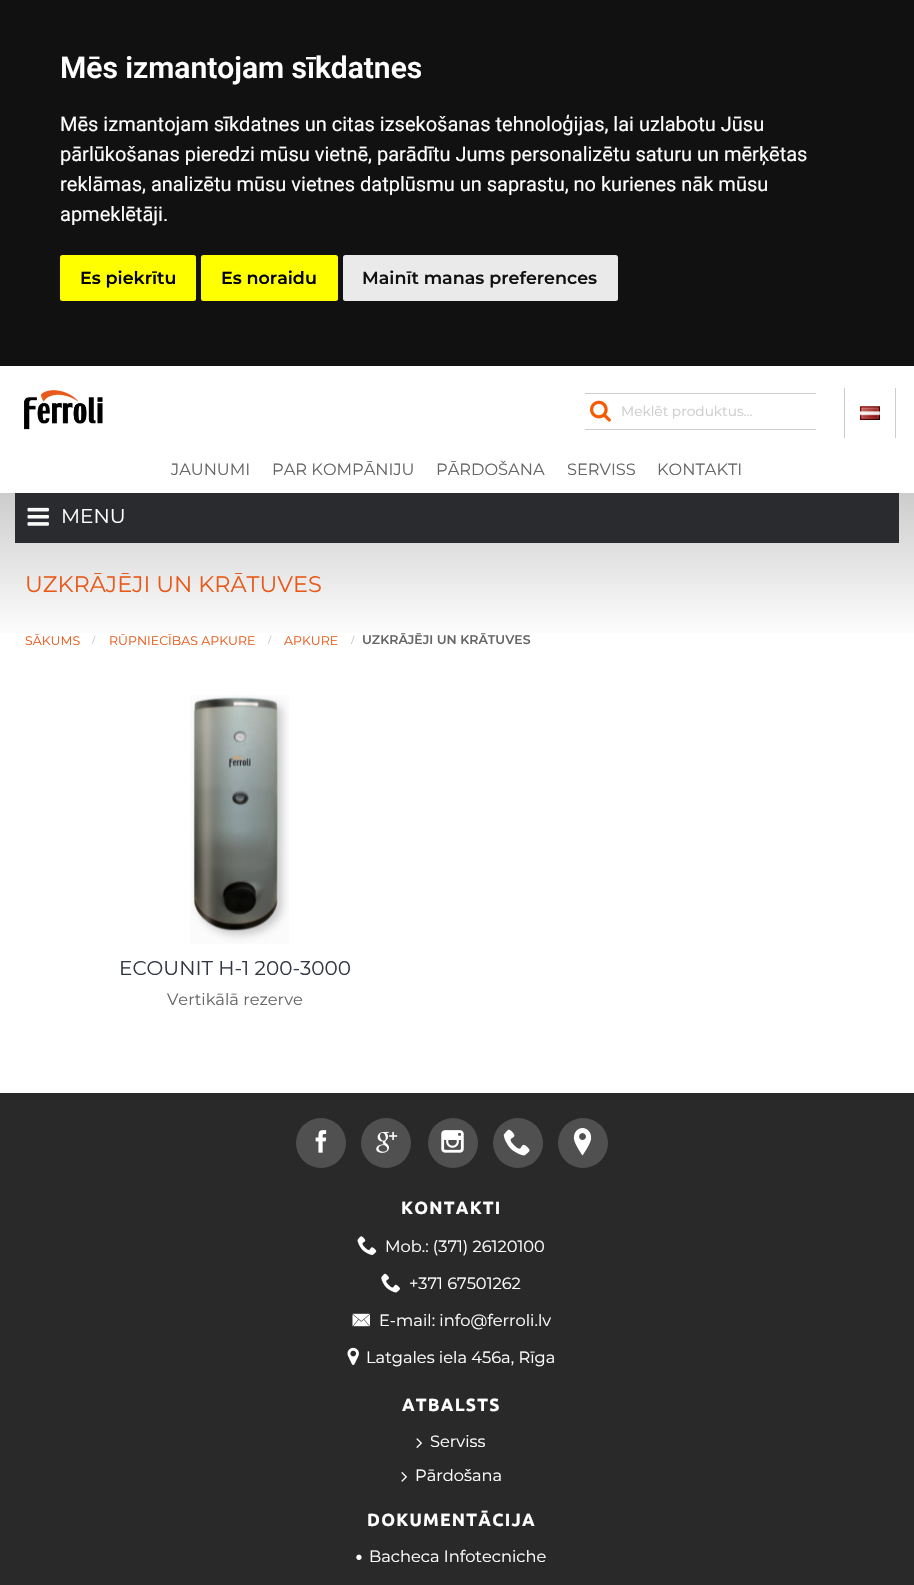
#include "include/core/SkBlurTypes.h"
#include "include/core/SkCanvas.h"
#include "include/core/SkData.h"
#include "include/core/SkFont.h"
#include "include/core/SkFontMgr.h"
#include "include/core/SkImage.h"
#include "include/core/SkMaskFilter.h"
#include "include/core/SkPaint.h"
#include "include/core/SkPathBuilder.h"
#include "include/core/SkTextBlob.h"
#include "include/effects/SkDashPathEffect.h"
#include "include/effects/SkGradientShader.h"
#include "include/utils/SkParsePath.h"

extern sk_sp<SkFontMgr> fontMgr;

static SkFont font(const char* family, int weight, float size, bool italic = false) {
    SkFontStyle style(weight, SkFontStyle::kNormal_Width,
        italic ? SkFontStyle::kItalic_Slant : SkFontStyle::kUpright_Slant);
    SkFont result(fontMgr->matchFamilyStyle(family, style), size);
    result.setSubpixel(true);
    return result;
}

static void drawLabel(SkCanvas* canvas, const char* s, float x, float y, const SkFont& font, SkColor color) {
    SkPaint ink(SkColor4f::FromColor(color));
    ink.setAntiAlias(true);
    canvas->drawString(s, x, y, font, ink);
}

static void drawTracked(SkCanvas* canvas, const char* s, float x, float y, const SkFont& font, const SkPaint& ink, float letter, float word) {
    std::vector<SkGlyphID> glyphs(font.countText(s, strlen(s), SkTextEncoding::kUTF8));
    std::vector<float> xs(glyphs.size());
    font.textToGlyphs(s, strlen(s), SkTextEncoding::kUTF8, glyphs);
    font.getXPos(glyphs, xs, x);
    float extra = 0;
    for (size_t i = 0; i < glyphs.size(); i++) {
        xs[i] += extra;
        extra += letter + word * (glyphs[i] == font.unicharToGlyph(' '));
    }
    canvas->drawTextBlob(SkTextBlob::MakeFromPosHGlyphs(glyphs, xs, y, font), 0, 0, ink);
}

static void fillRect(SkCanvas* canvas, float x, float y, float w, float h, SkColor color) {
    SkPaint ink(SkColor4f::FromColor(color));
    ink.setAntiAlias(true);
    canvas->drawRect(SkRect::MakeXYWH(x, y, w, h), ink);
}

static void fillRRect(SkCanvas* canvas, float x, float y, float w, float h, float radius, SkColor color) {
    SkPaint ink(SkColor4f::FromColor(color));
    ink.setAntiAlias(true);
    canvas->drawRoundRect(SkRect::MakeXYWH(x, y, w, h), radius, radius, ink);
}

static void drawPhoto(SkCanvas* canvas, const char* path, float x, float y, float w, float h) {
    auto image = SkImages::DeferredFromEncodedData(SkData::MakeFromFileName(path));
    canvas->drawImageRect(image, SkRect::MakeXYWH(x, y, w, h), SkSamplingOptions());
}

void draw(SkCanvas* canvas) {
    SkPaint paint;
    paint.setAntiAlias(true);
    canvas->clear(0xFFFFFFFF);
    fillRect(canvas, 0, 0, 914, 366, 0xFF111111);
    SkFont font1 = font("Roboto", 600, 30);
    drawLabel(canvas, "Mēs izmantojam sīkdatnes", 60, 78, font1, 0xFFFFFFFF);
    SkFont font2 = font("Roboto", 400, 20);
    drawLabel(canvas, "Mēs izmantojam sīkdatnes un citas izsekošanas tehnoloģijas, lai uzlabotu Jūsu", 60, 131, font2, 0xFFFFFFFF);
    drawLabel(canvas, "pārlūkošanas pieredzi mūsu vietnē, parādītu Jums personalizētu saturu un mērķētas", 60, 161, font2, 0xFFFFFFFF);
    drawLabel(canvas, "reklāmas, analizētu mūsu vietnes datplūsmu un saprastu, no kurienes nāk mūsu", 60, 191, font2, 0xFFFFFFFF);
    drawLabel(canvas, "apmeklētāji.", 60, 221, font2, 0xFFFFFFFF);
    fillRRect(canvas, 60, 255, 136, 46, 2.5f, 0xFFFFFF00);
    SkFont font3 = font("Montserrat", 600, 17.5f);
    drawLabel(canvas, "Es piekrītu", 80, 284, font3, 0xFF000000);
    fillRRect(canvas, 201, 255, 137, 46, 2.5f, 0xFFFFFF00);
    drawLabel(canvas, "Es noraidu", 221, 284, font3, 0xFF000000);
    fillRRect(canvas, 343, 255, 275, 46, 2.5f, 0xFFEAEAEA);
    drawLabel(canvas, "Mainīt manas preferences", 362, 284, font3, 0xFF111111);
    drawPhoto(canvas, "assets/img1.png", 24, 390, 79, 40);
    drawPhoto(canvas, "assets/img2.png", 590, 400, 21, 22);
    fillRect(canvas, 585, 393, 231, 1, 0xFFCCCCCC);
    fillRect(canvas, 585, 429, 231, 1, 0xFFCCCCCC);
    SkFont font4 = font("Montserrat", 400, 13.75f);
    drawLabel(canvas, "Meklēt produktus...", 621, 416, font4, 0xFFCCCCCC);
    fillRect(canvas, 895, 388, 1, 50, 0xFFCCCCCC);
    fillRect(canvas, 844, 388, 1, 50, 0xFFCCCCCC);
    drawPhoto(canvas, "assets/img3.png", 860, 406, 20, 14);
    SkFont font5 = font("Montserrat", 400, 16.25f);
    drawLabel(canvas, "JAUNUMI", 171, 475, font5, 0xFF666666);
    drawLabel(canvas, "PAR KOMPĀNIJU", 272, 475, font5, 0xFF666666);
    drawLabel(canvas, "PĀRDOŠANA", 436, 475, font5, 0xFF666666);
    drawLabel(canvas, "SERVISS", 567, 475, font5, 0xFF666666);
    drawLabel(canvas, "KONTAKTI", 657, 475, font5, 0xFF666666);
    {
        const SkColor colors[] = {0xFFCCCCCC, 0xFFFFFFFF};
        const float stops[] = {0, 1};
        const SkPoint ends[] = {{458, 492}, {458, 640}};
        paint.setShader(SkGradientShader::MakeLinear(ends, colors, stops, 2, SkTileMode::kClamp));
        paint.setAlpha(255);
    }
    canvas->drawRect(SkRect::MakeXYWH(0, 493, 914, 140), paint);
    fillRect(canvas, 15, 493, 884, 50, 0xFF2A2B2E);
    drawPhoto(canvas, "assets/img4.png", 27, 507, 22, 19);
    SkFont font6 = font("Montserrat", 400, 20);
    drawLabel(canvas, "MENU", 61, 523, font6, 0xFFFFFFFF);
    SkFont font7 = font("Montserrat", 400, 22.5f);
    drawLabel(canvas, "UZKRĀJĒJI UN KRĀTUVES", 25, 592, font7, 0xFFE95919);
    SkFont font8 = font("Montserrat", 400, 12.5f);
    drawLabel(canvas, "SĀKUMS", 25, 645, font8, 0xFFE95919);
    SkFont font9 = font("Liberation Serif", 400, 12.5f);
    drawLabel(canvas, "/", 92, 644, font9, 0xFFBBBBBB);
    drawLabel(canvas, "RŪPNIECĪBAS APKURE", 109, 645, font8, 0xFFE95919);
    drawLabel(canvas, "/", 268, 644, font9, 0xFFBBBBBB);
    drawLabel(canvas, "APKURE", 284, 645, font8, 0xFFE95919);
    drawLabel(canvas, "/", 351, 644, font9, 0xFFBBBBBB);
    SkFont font10 = font("Montserrat", 600, 12.5f);
    drawLabel(canvas, "UZKRĀJĒJI UN KRĀTUVES", 362, 644, font10, 0xFF666666);
    drawPhoto(canvas, "assets/img5.png", 190, 695, 99, 249);
    drawLabel(canvas, "ECOUNIT H-1 200-3000", 119, 975, font6, 0xFF333745);
    drawLabel(canvas, "Vertikālā rezerve", 167, 1005, font5, 0xFF666666);
    fillRect(canvas, 0, 1093, 914, 492, 0xFF292929);
    paint.setShader(nullptr);
    paint.setColor(0xFF505050);
    canvas->drawCircle(321, 1143, 25, paint);
    drawPhoto(canvas, "assets/img6.png", 315, 1130, 12, 23);
    canvas->drawCircle(386, 1143, 25, paint);
    drawPhoto(canvas, "assets/img7.png", 376, 1131, 22, 22);
    canvas->drawCircle(453, 1143, 25, paint);
    drawPhoto(canvas, "assets/img8.png", 441, 1130, 23, 23);
    canvas->drawCircle(518, 1143, 25, paint);
    drawPhoto(canvas, "assets/img9.png", 503, 1129, 27, 27);
    canvas->drawCircle(583, 1143, 25, paint);
    drawPhoto(canvas, "assets/img10.png", 573, 1128, 19, 28);
    fillRect(canvas, 19, 1220, 865, 1, 0xFF2A2B2E);
    SkFont font11 = font("Ubuntu", 700, 17.5f);
    paint.setColor(0xFFFFFFFF);
    drawTracked(canvas, "KONTAKTI", 401, 1214, font11, paint, 1.25f, 0);
    drawPhoto(canvas, "assets/img11.png", 357, 1236, 20, 19);
    drawLabel(canvas, "Mob.: (371) 26120100", 385, 1252, font5, 0xFFFFFFFF);
    drawPhoto(canvas, "assets/img12.png", 381, 1273, 19, 20);
    drawLabel(canvas, "+371 67501262", 409, 1289, font5, 0xFFFFFFFF);
    drawPhoto(canvas, "assets/img13.png", 352, 1313, 18, 14);
    drawLabel(canvas, "E-mail: info@ferroli.lv", 379, 1326, font5, 0xFFFFFFFF);
    drawPhoto(canvas, "assets/img14.png", 347, 1347, 12, 18);
    drawLabel(canvas, "Latgales iela 456a, Rīga", 366, 1363, font5, 0xFFFFFFFF);
    fillRect(canvas, 19, 1418, 865, 1, 0xFF2A2B2E);
    drawTracked(canvas, "ATBALSTS", 402, 1411, font11, paint, 1.25f, 0);
    drawPhoto(canvas, "assets/img15.png", 416, 1438, 6, 10);
    drawLabel(canvas, "Serviss", 430, 1447, font5, 0xFFFFFFFF);
    drawPhoto(canvas, "assets/img16.png", 401, 1472, 6, 10);
    drawLabel(canvas, "Pārdošana", 415, 1481, font5, 0xFFFFFFFF);
    fillRect(canvas, 19, 1533, 865, 1, 0xFF2A2B2E);
    drawTracked(canvas, "DOKUMENTĀCIJA", 367, 1526, font11, paint, 1.25f, 0);
    drawPhoto(canvas, "assets/img17.png", 356, 1554, 6, 6);
    drawLabel(canvas, "Bacheca Infotecniche", 369, 1562, font5, 0xFFFFFFFF);
}
